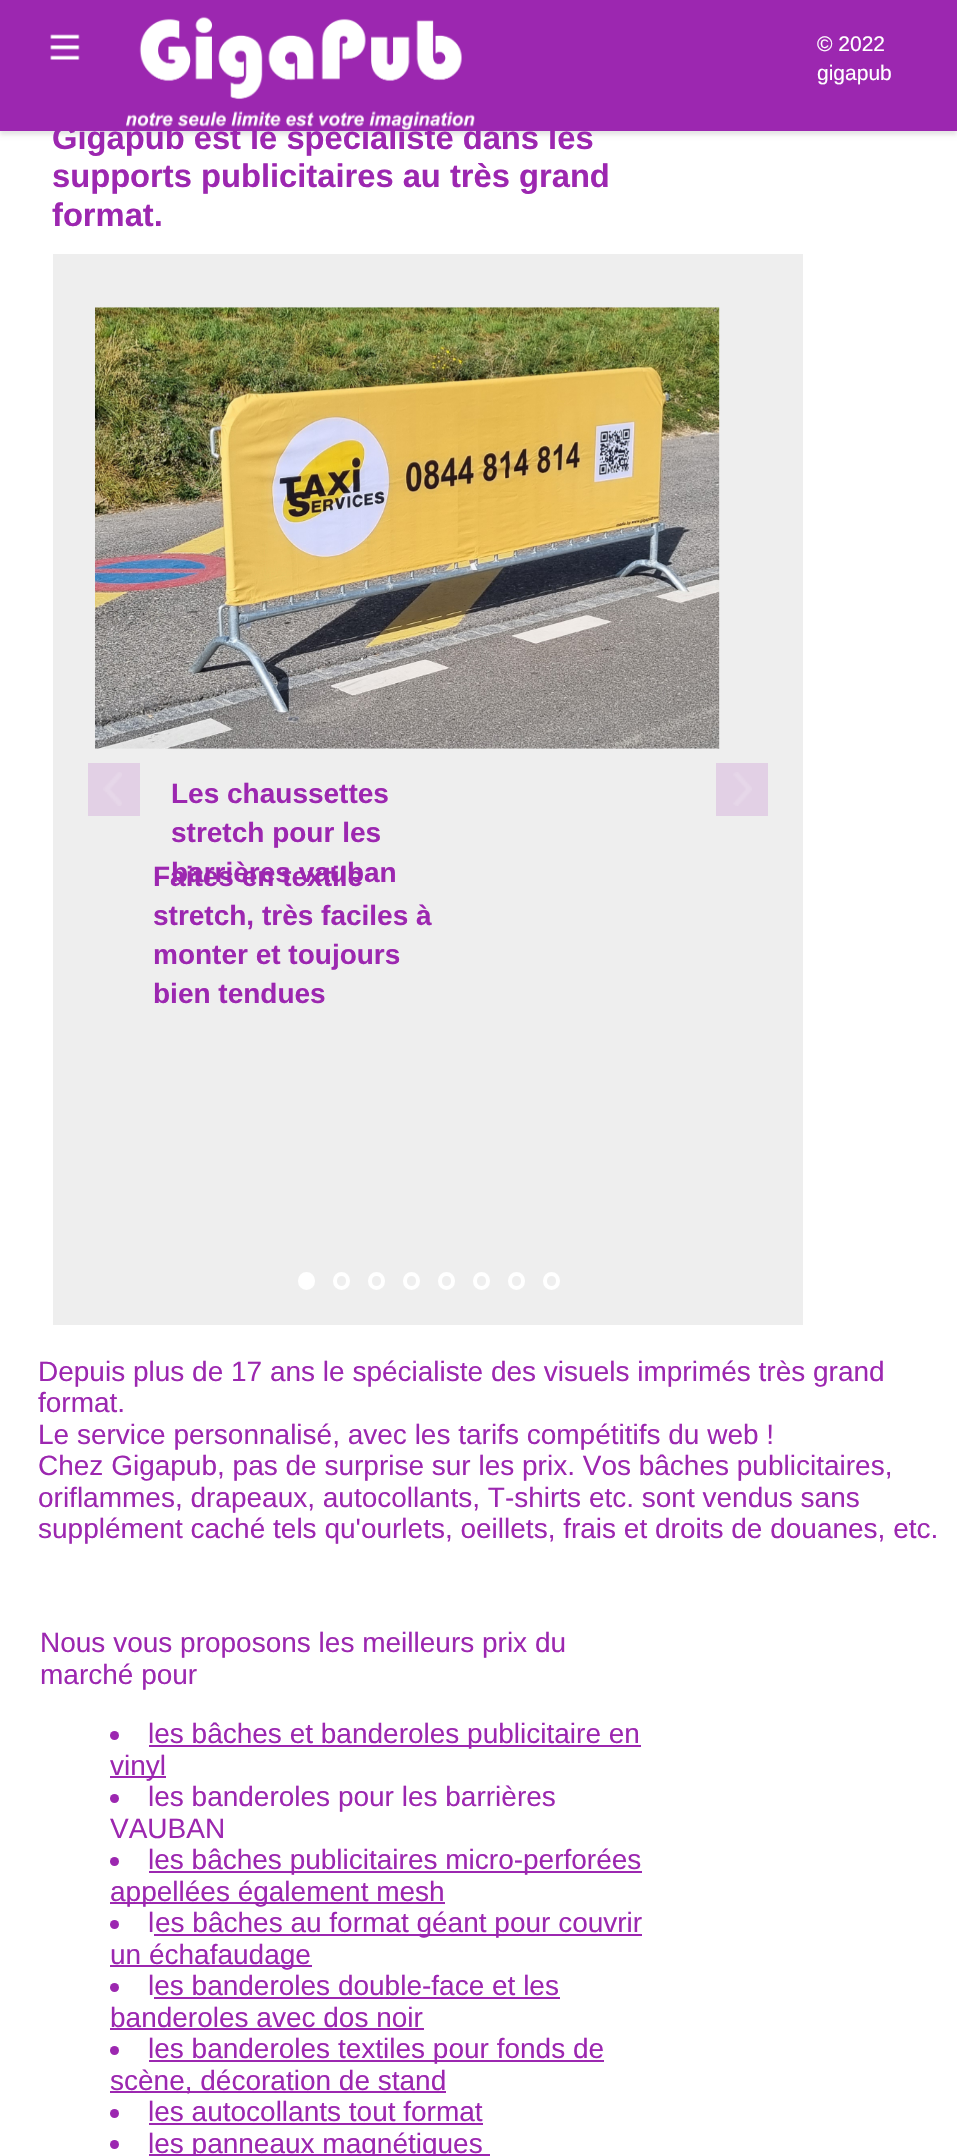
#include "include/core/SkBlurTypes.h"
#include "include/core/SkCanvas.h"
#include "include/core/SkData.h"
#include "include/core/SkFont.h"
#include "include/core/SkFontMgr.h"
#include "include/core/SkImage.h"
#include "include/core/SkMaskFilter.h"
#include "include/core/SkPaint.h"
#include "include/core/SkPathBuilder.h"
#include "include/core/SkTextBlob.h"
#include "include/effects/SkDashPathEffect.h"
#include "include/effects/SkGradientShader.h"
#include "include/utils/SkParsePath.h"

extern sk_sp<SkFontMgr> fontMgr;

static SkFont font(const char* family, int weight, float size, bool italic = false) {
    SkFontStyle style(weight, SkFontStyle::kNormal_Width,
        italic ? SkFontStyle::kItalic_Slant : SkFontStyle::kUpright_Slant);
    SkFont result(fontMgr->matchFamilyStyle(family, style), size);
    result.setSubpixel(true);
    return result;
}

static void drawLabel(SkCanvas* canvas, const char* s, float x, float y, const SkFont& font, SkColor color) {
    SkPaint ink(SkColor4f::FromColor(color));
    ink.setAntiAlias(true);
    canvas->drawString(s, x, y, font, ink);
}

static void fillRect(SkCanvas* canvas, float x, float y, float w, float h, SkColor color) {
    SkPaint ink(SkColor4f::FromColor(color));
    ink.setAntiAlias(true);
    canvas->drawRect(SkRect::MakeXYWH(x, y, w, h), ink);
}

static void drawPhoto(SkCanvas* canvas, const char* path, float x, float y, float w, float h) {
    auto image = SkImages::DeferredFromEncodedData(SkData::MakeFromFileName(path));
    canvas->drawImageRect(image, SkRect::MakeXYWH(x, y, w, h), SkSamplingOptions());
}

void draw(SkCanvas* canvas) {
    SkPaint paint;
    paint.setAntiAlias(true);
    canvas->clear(0xFFFFFFFF);
    paint.setColor(0xFFE6E6E6);
    paint.setMaskFilter(SkMaskFilter::MakeBlur(kNormal_SkBlurStyle, 2));
    canvas->drawRect(SkRect::MakeXYWH(0, 4, 957, 131), paint);
    paint.setMaskFilter(nullptr);
    fillRect(canvas, 0, 0, 957, 131, 0xFF9C27B0);
    drawPhoto(canvas, "assets/img1.png", 50, 34, 30, 26);
    SkFont font1 = font("Liberation Sans", 700, 32.7f);
    drawLabel(canvas, "Gigapub est le spécialiste dans les", 52, 149, font1, 0xFF9C27B0);
    drawPhoto(canvas, "assets/img2.png", 126, 16, 349, 114);
    SkFont font2 = font("Liberation Sans", 400, 21);
    drawLabel(canvas, "© 2022", 817, 51, font2, 0xFFFFFFFF);
    drawLabel(canvas, "gigapub", 817, 80, font2, 0xFFFFFFFF);
    drawLabel(canvas, "supports publicitaires au très grand", 52, 187, font1, 0xFF9C27B0);
    drawLabel(canvas, "format.", 52, 226, font1, 0xFF9C27B0);
    fillRect(canvas, 53, 254, 750, 1071, 0xFFEEEEEE);
    fillRect(canvas, 88, 763, 52, 53, 0xFFE2D0E5);
    drawPhoto(canvas, "assets/img3.png", 103, 772, 19, 34);
    fillRect(canvas, 716, 763, 52, 53, 0xFFE2D0E5);
    drawPhoto(canvas, "assets/img4.png", 733, 772, 19, 34);
    paint.setColor(0xFFFFFFFF);
    canvas->drawRoundRect(SkRect::MakeXYWH(300, 1274, 13, 14), 6.5f, 6.5f, paint);
    paint.setStroke(true);
    paint.setStrokeWidth(4);
    canvas->drawRoundRect(SkRect::MakeXYWH(300, 1274, 13, 14), 6.5f, 6.5f, paint);
    canvas->drawRoundRect(SkRect::MakeXYWH(335, 1274, 13, 14), 6.5f, 6.5f, paint);
    canvas->drawRoundRect(SkRect::MakeXYWH(370, 1274, 13, 14), 6.5f, 6.5f, paint);
    canvas->drawRoundRect(SkRect::MakeXYWH(405, 1274, 13, 14), 6.5f, 6.5f, paint);
    canvas->drawRoundRect(SkRect::MakeXYWH(440, 1274, 13, 14), 6.5f, 6.5f, paint);
    canvas->drawRoundRect(SkRect::MakeXYWH(475, 1274, 13, 14), 6.5f, 6.5f, paint);
    canvas->drawRoundRect(SkRect::MakeXYWH(510, 1274, 13, 14), 6.5f, 6.5f, paint);
    canvas->drawRoundRect(SkRect::MakeXYWH(545, 1274, 13, 14), 6.5f, 6.5f, paint);
    drawPhoto(canvas, "assets/img5.png", 95, 307, 625, 442);
    SkFont font3 = font("Liberation Sans", 700, 28);
    drawLabel(canvas, "Les chaussettes", 171, 803, font3, 0xFF9C27B0);
    drawLabel(canvas, "stretch pour les", 171, 842, font3, 0xFF9C27B0);
    drawLabel(canvas, "barrières vauban", 171, 882, font3, 0xFF9C27B0);
    drawLabel(canvas, "Faites en textile", 153, 886, font3, 0xFF9C27B0);
    drawLabel(canvas, "stretch, très faciles à", 153, 925, font3, 0xFF9C27B0);
    drawLabel(canvas, "monter et toujours", 153, 964, font3, 0xFF9C27B0);
    drawLabel(canvas, "bien tendues", 153, 1003, font3, 0xFF9C27B0);
    SkFont font4 = font("Liberation Sans", 400, 28);
    drawLabel(canvas, "Depuis plus de 17 ans le spécialiste des visuels imprimés très grand", 38, 1381, font4, 0xFF9C27B0);
    drawLabel(canvas, "format.", 38, 1412, font4, 0xFF9C27B0);
    drawLabel(canvas, "Le service personnalisé, avec les tarifs compétitifs du web !", 38, 1444, font4, 0xFF9C27B0);
    drawLabel(canvas, "Chez Gigapub, pas de surprise sur les prix. Vos bâches publicitaires,", 38, 1475, font4, 0xFF9C27B0);
    drawLabel(canvas, "oriflammes, drapeaux, autocollants, T-shirts etc. sont vendus sans", 38, 1507, font4, 0xFF9C27B0);
    drawLabel(canvas, "supplément caché tels qu'ourlets, oeillets, frais et droits de douanes, etc.", 38, 1538, font4, 0xFF9C27B0);
    drawLabel(canvas, "Nous vous proposons les meilleurs prix du", 40, 1652, font4, 0xFF9C27B0);
    drawLabel(canvas, "marché pour", 40, 1684, font4, 0xFF9C27B0);
    paint.setStroke(false);
    paint.setColor(0xFF9C27B0);
    canvas->drawCircle(114.5f, 1735.5f, 4.5f, paint);
    fillRect(canvas, 149, 1745, 492, 2, 0xFF9C27B0);
    drawLabel(canvas, "les bâches et banderoles publicitaire en", 148, 1743, font4, 0xFF9C27B0);
    fillRect(canvas, 110, 1776, 56, 2, 0xFF9C27B0);
    drawLabel(canvas, "vinyl", 110, 1775, font4, 0xFF9C27B0);
    canvas->drawCircle(114.5f, 1798.5f, 4.5f, paint);
    drawLabel(canvas, "les banderoles pour les barrières", 148, 1806, font4, 0xFF9C27B0);
    drawLabel(canvas, "VAUBAN", 110, 1838, font4, 0xFF9C27B0);
    canvas->drawCircle(114.5f, 1861.5f, 4.5f, paint);
    fillRect(canvas, 149, 1871, 493, 2, 0xFF9C27B0);
    drawLabel(canvas, "les bâches publicitaires micro-perforées", 148, 1869, font4, 0xFF9C27B0);
    fillRect(canvas, 110, 1902, 335, 2, 0xFF9C27B0);
    drawLabel(canvas, "appellées également mesh", 110, 1901, font4, 0xFF9C27B0);
    canvas->drawCircle(114.5f, 1924.5f, 4.5f, paint);
    drawLabel(canvas, "l", 148, 1932, font4, 0xFF9C27B0);
    fillRect(canvas, 154, 1934, 488, 2, 0xFF9C27B0);
    drawLabel(canvas, "es bâches au format géant pour couvrir", 155, 1932, font4, 0xFF9C27B0);
    fillRect(canvas, 110, 1965, 202, 2, 0xFF9C27B0);
    drawLabel(canvas, "un échafaudage", 110, 1964, font4, 0xFF9C27B0);
    canvas->drawCircle(114.5f, 1987.5f, 4.5f, paint);
    drawLabel(canvas, "les banderoles double-face et les", 148, 1995, font4, 0xFF9C27B0);
    drawLabel(canvas, "banderoles avec dos noir", 110, 2027, font4, 0xFF9C27B0);
    fillRect(canvas, 154, 1997, 406, 2, 0xFF9C27B0);
    fillRect(canvas, 110, 2028, 314, 2, 0xFF9C27B0);
    canvas->drawCircle(114.5f, 2050.5f, 4.5f, paint);
    fillRect(canvas, 149, 2060, 455, 2, 0xFF9C27B0);
    drawLabel(canvas, "les banderoles textiles pour fonds de", 148, 2058, font4, 0xFF9C27B0);
    fillRect(canvas, 110, 2091, 336, 2, 0xFF9C27B0);
    drawLabel(canvas, "scène, décoration de stand", 110, 2090, font4, 0xFF9C27B0);
    canvas->drawCircle(114.5f, 2113.5f, 4.5f, paint);
    drawLabel(canvas, "les autocollants tout format", 148, 2121, font4, 0xFF9C27B0);
    fillRect(canvas, 149, 2123, 334, 2, 0xFF9C27B0);
    canvas->drawCircle(114.5f, 2144.5f, 4.5f, paint);
    fillRect(canvas, 149, 2154, 341, 2, 0xFF9C27B0);
    drawLabel(canvas, "les panneaux magnétiques", 148, 2153, font4, 0xFF9C27B0);
}
